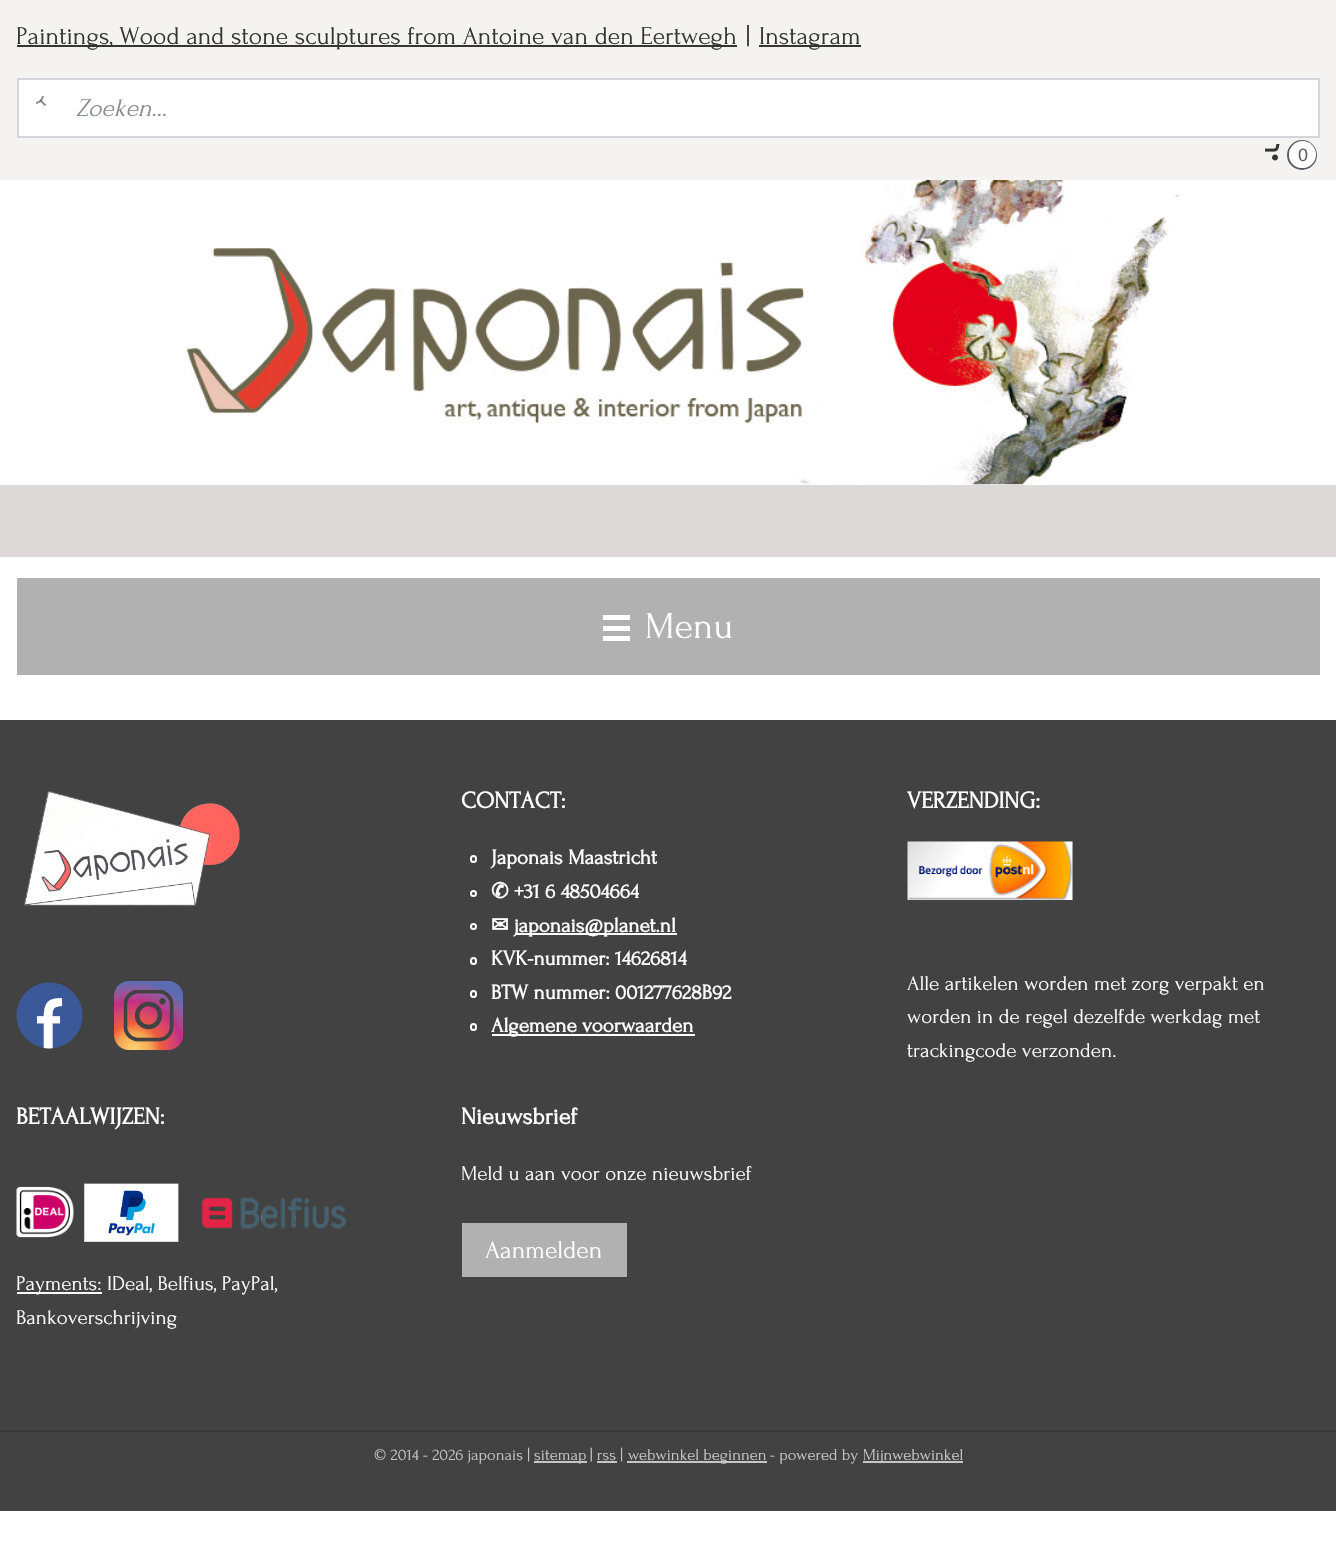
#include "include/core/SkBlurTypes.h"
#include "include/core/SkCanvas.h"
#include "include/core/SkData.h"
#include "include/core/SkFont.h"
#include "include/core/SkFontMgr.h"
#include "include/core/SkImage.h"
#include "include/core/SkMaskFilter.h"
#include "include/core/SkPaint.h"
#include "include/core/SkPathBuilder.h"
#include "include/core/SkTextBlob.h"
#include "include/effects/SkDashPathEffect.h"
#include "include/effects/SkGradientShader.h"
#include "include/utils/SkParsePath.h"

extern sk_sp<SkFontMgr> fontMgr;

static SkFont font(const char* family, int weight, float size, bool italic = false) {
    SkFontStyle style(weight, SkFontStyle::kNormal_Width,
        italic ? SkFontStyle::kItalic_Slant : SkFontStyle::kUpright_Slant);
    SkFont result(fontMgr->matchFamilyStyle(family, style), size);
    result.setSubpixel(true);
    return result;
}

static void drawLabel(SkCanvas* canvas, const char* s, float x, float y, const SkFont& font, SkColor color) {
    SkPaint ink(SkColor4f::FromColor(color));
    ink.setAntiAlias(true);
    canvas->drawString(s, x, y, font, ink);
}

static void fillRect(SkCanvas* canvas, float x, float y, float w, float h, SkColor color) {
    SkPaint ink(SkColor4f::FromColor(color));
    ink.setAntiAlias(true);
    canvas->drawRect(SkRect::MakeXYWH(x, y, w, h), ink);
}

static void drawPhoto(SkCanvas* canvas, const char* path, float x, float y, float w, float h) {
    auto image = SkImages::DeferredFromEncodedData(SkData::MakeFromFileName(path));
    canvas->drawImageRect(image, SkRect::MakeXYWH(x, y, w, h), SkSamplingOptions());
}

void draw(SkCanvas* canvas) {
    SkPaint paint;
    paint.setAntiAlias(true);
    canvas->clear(0xFFFFFFFF);
    fillRect(canvas, 0, 0, 1336, 180, 0xFFF5F2F2);
    fillRect(canvas, 17, 45, 720, 2, 0xFF363333);
    SkFont font1 = font("Forum", 400, 25.5f);
    drawLabel(canvas, "Paintings, Wood and stone sculptures from Antoine van den Eertwegh", 16, 44, font1, 0xFF363333);
    drawLabel(canvas, "|", 746, 44, font1, 0xFF363333);
    fillRect(canvas, 759, 45, 102, 2, 0xFF363333);
    drawLabel(canvas, "Instagram", 759, 44, font1, 0xFF363333);
    paint.setColor(0xFFFFFFFF);
    canvas->drawRect(SkRect::MakeXYWH(18, 79, 1301, 58), paint);
    paint.setStroke(true);
    paint.setStrokeWidth(2);
    paint.setColor(0xFFD3D5D9);
    canvas->drawRect(SkRect::MakeXYWH(18, 79, 1301, 58), paint);
    drawPhoto(canvas, "assets/img1.png", 36, 96, 10, 10);
    SkFont font2 = font("Forum", 400, 25.5f, true);
    drawLabel(canvas, "Zoeken...", 76, 116, font2, 0xFF898C91);
    drawPhoto(canvas, "assets/img2.png", 1265, 144, 15, 17);
    paint.setColor(0xFF575B62);
    canvas->drawCircle(1302, 155, 14, paint);
    paint.setStroke(false);
    paint.setColor(0xFFFFFFFF);
    canvas->drawCircle(1302.5f, 154.5f, 13.5f, paint);
    SkFont font3 = font("Liberation Sans", 400, 18);
    drawLabel(canvas, "0", 1298, 161, font3, 0xFF575B62);
    drawPhoto(canvas, "assets/img3.png", 187, 180, 993, 305);
    fillRect(canvas, 0, 485, 1336, 72, 0xFFDED9D9);
    fillRect(canvas, 17, 578, 1303, 97, 0xFFB1B1B1);
    fillRect(canvas, 603, 626, 27, 5, 0xFFFFFFFF);
    fillRect(canvas, 603, 615, 27, 5, 0xFFFFFFFF);
    fillRect(canvas, 603, 636, 27, 5, 0xFFFFFFFF);
    SkFont font4 = font("Forum", 400, 38);
    drawLabel(canvas, "Menu", 645, 638, font4, 0xFFFFFFFF);
    fillRect(canvas, 0, 720, 1336, 710, 0xFF424242);
    drawPhoto(canvas, "assets/img4.png", 24, 791, 216, 115);
    drawPhoto(canvas, "assets/img5.png", 16, 982, 67, 67);
    drawPhoto(canvas, "assets/img6.png", 114, 981, 69, 69);
    SkFont font5 = font("Forum", 700, 24);
    drawLabel(canvas, "CONTACT:", 461, 808, font5, 0xFFFFFFFF);
    paint.setStroke(true);
    canvas->drawRoundRect(SkRect::MakeXYWH(471, 856, 5, 6), 2.5f, 2.5f, paint);
    SkFont font6 = font("Forum", 700, 21);
    drawLabel(canvas, "Japonais Maastricht", 491, 864, font6, 0xFFFFFFFF);
    canvas->drawCircle(473.5f, 893.5f, 2.5f, paint);
    SkFont font7 = font("DejaVu Sans", 700, 21);
    drawLabel(canvas, "✆", 491, 898, font7, 0xFFFFFFFF);
    drawLabel(canvas, "+31 6 48504664", 514, 898, font6, 0xFFFFFFFF);
    canvas->drawCircle(473.5f, 926.5f, 2.5f, paint);
    drawLabel(canvas, "✉", 491, 932, font7, 0xFFFFFFFF);
    fillRect(canvas, 515, 933, 162, 2, 0xFFFFFFFF);
    drawLabel(canvas, "japonais@planet.nl", 514, 932, font6, 0xFFFFFFFF);
    canvas->drawRoundRect(SkRect::MakeXYWH(471, 958, 5, 6), 2.5f, 2.5f, paint);
    drawLabel(canvas, "KVK-nummer: 14626814", 491, 965, font6, 0xFFFFFFFF);
    canvas->drawRoundRect(SkRect::MakeXYWH(471, 991, 5, 6), 2.5f, 2.5f, paint);
    drawLabel(canvas, "BTW nummer: 001277628B92", 491, 999, font6, 0xFFFFFFFF);
    canvas->drawRoundRect(SkRect::MakeXYWH(471, 1024, 5, 6), 2.5f, 2.5f, paint);
    fillRect(canvas, 492, 1034, 203, 2, 0xFFFFFFFF);
    drawLabel(canvas, "Algemene voorwaarden", 491, 1032, font6, 0xFFFFFFFF);
    drawLabel(canvas, "VERZENDING:", 907, 808, font5, 0xFFFFFFFF);
    drawPhoto(canvas, "assets/img7.png", 907, 841, 166, 59);
    SkFont font8 = font("Forum", 400, 21);
    drawLabel(canvas, "Alle artikelen worden met zorg verpakt en", 907, 990, font8, 0xFFFFFFFF);
    drawLabel(canvas, "worden in de regel dezelfde werkdag met", 907, 1023, font8, 0xFFFFFFFF);
    drawLabel(canvas, "trackingcode verzonden.", 907, 1057, font8, 0xFFFFFFFF);
    drawLabel(canvas, "BETAALWIJZEN:", 16, 1124, font5, 0xFFFFFFFF);
    drawPhoto(canvas, "assets/img8.png", 16, 1186, 58, 52);
    drawPhoto(canvas, "assets/img9.png", 84, 1183, 95, 59);
    drawPhoto(canvas, "assets/img10.png", 201, 1197, 145, 32);
    fillRect(canvas, 17, 1292, 85, 2, 0xFFFFFFFF);
    drawLabel(canvas, "Payments: IDeal, Belfius, PayPal,", 16, 1290, font8, 0xFFFFFFFF);
    drawLabel(canvas, "Bankoverschrijving", 16, 1324, font8, 0xFFFFFFFF);
    drawLabel(canvas, "Nieuwsbrief", 461, 1124, font5, 0xFFFFFFFF);
    drawLabel(canvas, "Meld u aan voor onze nieuwsbrief", 461, 1180, font8, 0xFFFFFFFF);
    fillRect(canvas, 462, 1223, 165, 54, 0xFFB1B1B1);
    drawLabel(canvas, "Aanmelden", 485, 1258, font1, 0xFFFFFFFF);
    fillRect(canvas, 0, 1432, 1336, 79, 0xFF424242);
    fillRect(canvas, 0, 1430, 1336, 2, 0xFF383838);
    SkFont font9 = font("Forum", 400, 16.5f);
    drawLabel(canvas, "© 2014 - 2026 japonais |", 374, 1460, font9, 0xFFC6C6C6);
    fillRect(canvas, 534, 1461, 53, 2, 0xFFC6C6C6);
    drawLabel(canvas, "sitemap", 534, 1460, font9, 0xFFC6C6C6);
    drawLabel(canvas, "| rss |", 590, 1460, font9, 0xFFC6C6C6);
    fillRect(canvas, 627, 1461, 140, 2, 0xFFC6C6C6);
    drawLabel(canvas, "webwinkel beginnen", 628, 1460, font9, 0xFFC6C6C6);
    drawLabel(canvas, "- powered by", 770, 1460, font9, 0xFFC6C6C6);
    fillRect(canvas, 863, 1461, 100, 2, 0xFFC6C6C6);
    drawLabel(canvas, "Mijnwebwinkel", 863, 1460, font9, 0xFFC6C6C6);
    fillRect(canvas, 597, 1461, 20, 2, 0xFFC6C6C6);
}
